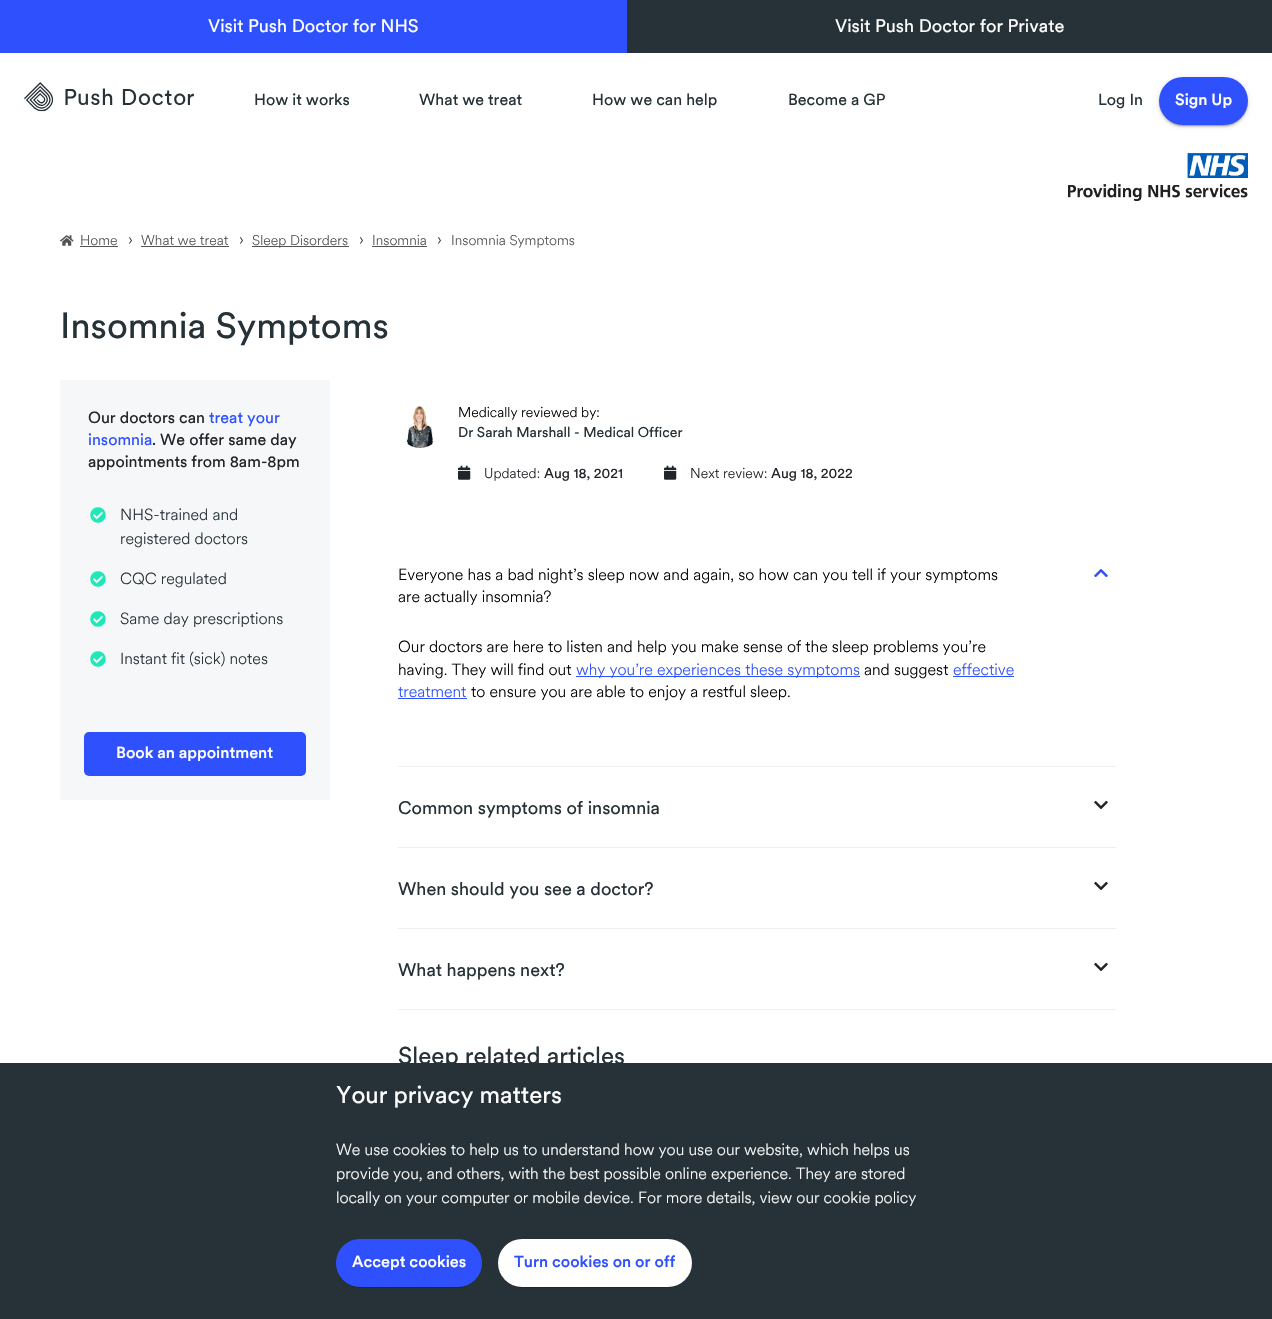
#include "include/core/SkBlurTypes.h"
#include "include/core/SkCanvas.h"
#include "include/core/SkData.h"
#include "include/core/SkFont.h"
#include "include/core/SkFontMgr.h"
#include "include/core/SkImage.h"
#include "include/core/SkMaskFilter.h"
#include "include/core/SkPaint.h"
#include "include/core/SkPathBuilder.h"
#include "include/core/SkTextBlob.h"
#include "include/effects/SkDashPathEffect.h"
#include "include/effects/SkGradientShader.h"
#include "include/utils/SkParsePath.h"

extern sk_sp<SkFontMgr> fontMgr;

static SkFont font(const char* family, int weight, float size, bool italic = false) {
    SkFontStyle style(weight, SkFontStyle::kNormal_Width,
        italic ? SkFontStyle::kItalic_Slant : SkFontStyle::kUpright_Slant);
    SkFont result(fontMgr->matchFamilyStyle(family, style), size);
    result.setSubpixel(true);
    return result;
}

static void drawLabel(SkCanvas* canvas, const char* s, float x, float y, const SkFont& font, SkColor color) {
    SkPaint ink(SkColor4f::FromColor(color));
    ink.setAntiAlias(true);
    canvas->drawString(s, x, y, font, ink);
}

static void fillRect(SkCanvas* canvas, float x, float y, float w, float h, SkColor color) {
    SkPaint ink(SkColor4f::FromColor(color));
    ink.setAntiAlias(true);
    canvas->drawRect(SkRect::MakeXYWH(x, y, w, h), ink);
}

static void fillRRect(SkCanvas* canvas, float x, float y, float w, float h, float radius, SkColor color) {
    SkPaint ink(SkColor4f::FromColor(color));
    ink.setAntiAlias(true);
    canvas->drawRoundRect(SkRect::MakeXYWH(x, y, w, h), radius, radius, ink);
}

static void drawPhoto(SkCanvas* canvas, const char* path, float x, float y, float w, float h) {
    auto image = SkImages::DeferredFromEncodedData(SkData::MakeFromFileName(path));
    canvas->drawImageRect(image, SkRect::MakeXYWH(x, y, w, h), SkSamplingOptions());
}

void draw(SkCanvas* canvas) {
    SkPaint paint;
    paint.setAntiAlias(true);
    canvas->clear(0xFFFFFFFF);
    fillRect(canvas, 0, 0, 627, 53, 0xFF2F50FD);
    SkFont font1 = font("Circular", 400, 18);
    drawLabel(canvas, "Visit Push Doctor for NHS", 208, 32, font1, 0xFFFFFFFF);
    fillRect(canvas, 627, 0, 645, 53, 0xFF263237);
    drawLabel(canvas, "Visit Push Doctor for Private", 835, 32, font1, 0xFFFFFFFF);
    drawPhoto(canvas, "assets/img1.png", 24, 82, 170, 30);
    SkFont font2 = font("Circular", 400, 16);
    drawLabel(canvas, "How it works", 254, 105, font2, 0xFF263237);
    drawLabel(canvas, "What we treat", 419, 105, font2, 0xFF263237);
    drawLabel(canvas, "How we can help", 592, 105, font2, 0xFF263237);
    drawLabel(canvas, "Become a GP", 788, 105, font2, 0xFF263237);
    drawLabel(canvas, "Log In", 1098, 105, font2, 0xFF263237);
    paint.setColor(0x1F000000);
    paint.setMaskFilter(SkMaskFilter::MakeBlur(kNormal_SkBlurStyle, 2.5f));
    canvas->drawRoundRect(SkRect::MakeXYWH(1159, 78, 89, 48), 24, 24, paint);
    paint.setMaskFilter(nullptr);
    paint.setColor(0x24000000);
    paint.setMaskFilter(SkMaskFilter::MakeBlur(kNormal_SkBlurStyle, 1));
    canvas->drawRoundRect(SkRect::MakeXYWH(1159, 79, 89, 48), 24, 24, paint);
    paint.setMaskFilter(nullptr);
    paint.setColor(0x33000000);
    paint.setMaskFilter(SkMaskFilter::MakeBlur(kNormal_SkBlurStyle, 0.5f));
    canvas->drawRoundRect(SkRect::MakeXYWH(1161, 82, 85, 44), 22, 22, paint);
    paint.setMaskFilter(nullptr);
    fillRRect(canvas, 1159, 77, 89, 48, 24, 0xFF2F50FD);
    SkFont font3 = font("Circular", 500, 16);
    drawLabel(canvas, "Sign Up", 1175, 105, font3, 0xFFFFFFFF);
    drawPhoto(canvas, "assets/img2.png", 1068, 153, 180, 48);
    drawPhoto(canvas, "assets/img3.png", 60, 235, 14, 11);
    SkFont font4 = font("Circular", 300, 14);
    drawLabel(canvas, "Home", 80, 245, font4, 0xFF525454);
    fillRect(canvas, 80, 246, 38, 1, 0xFF525454);
    SkFont font5 = font("Circular", 300, 16);
    drawLabel(canvas, "›", 128, 245, font5, 0xFF263237);
    drawLabel(canvas, "What we treat", 141, 245, font4, 0xFF525454);
    fillRect(canvas, 141, 246, 88, 1, 0xFF525454);
    drawLabel(canvas, "›", 239, 245, font5, 0xFF263237);
    fillRect(canvas, 252, 246, 97, 1, 0xFF525454);
    drawLabel(canvas, "Sleep Disorders", 252, 245, font4, 0xFF525454);
    drawLabel(canvas, "›", 359, 245, font5, 0xFF263237);
    drawLabel(canvas, "Insomnia", 372, 245, font4, 0xFF525454);
    fillRect(canvas, 372, 246, 55, 1, 0xFF525454);
    drawLabel(canvas, "›", 437, 245, font5, 0xFF263237);
    drawLabel(canvas, "Insomnia Symptoms", 451, 245, font4, 0xFF525454);
    SkFont font6 = font("Circular", 400, 36);
    drawLabel(canvas, "Insomnia Symptoms", 60, 338, font6, 0xFF263237);
    fillRect(canvas, 60, 380, 270, 420, 0xFFF5F7F8);
    drawLabel(canvas, "Our doctors can", 88, 423, font2, 0xFF212529);
    drawLabel(canvas, "treat your", 209, 423, font2, 0xFF2F50FD);
    drawLabel(canvas, "insomnia", 88, 445, font2, 0xFF2F50FD);
    drawLabel(canvas, ". We offer same day", 152, 445, font2, 0xFF212529);
    drawLabel(canvas, "appointments from 8am-8pm", 88, 467, font2, 0xFF212529);
    drawPhoto(canvas, "assets/img4.png", 90, 507, 16, 16);
    drawLabel(canvas, "NHS-trained and", 120, 520, font5, 0xFF263237);
    drawLabel(canvas, "registered doctors", 120, 544, font5, 0xFF263237);
    drawPhoto(canvas, "assets/img4.png", 90, 571, 16, 16);
    drawLabel(canvas, "CQC regulated", 120, 584, font5, 0xFF263237);
    drawPhoto(canvas, "assets/img4.png", 90, 611, 16, 16);
    drawLabel(canvas, "Same day prescriptions", 120, 624, font5, 0xFF263237);
    drawPhoto(canvas, "assets/img4.png", 90, 651, 16, 16);
    drawLabel(canvas, "Instant fit (sick) notes", 120, 664, font5, 0xFF263237);
    fillRRect(canvas, 84, 732, 222, 44, 5, 0xFF2F50FD);
    drawLabel(canvas, "Book an appointment", 116, 758, font3, 0xFFFFFFFF);
    drawPhoto(canvas, "assets/img5.png", 406, 405, 27, 43);
    drawLabel(canvas, "Medically reviewed by:", 458, 417, font4, 0xFF000000);
    SkFont font7 = font("Circular", 400, 14);
    drawLabel(canvas, "Dr Sarah Marshall - Medical Officer", 458, 437, font7, 0xFF263237);
    drawPhoto(canvas, "assets/img6.png", 458, 465, 13, 15);
    drawLabel(canvas, "Updated:", 484, 478, font4, 0xFF212529);
    drawLabel(canvas, "Aug 18, 2021", 544, 478, font7, 0xFF212529);
    drawPhoto(canvas, "assets/img6.png", 664, 465, 13, 15);
    drawLabel(canvas, "Next review:", 690, 478, font4, 0xFF212529);
    drawLabel(canvas, "Aug 18, 2022", 771, 478, font7, 0xFF212529);
    fillRect(canvas, 398, 766, 718, 1, 0xFFEFEFEF);
    drawLabel(canvas, "Everyone has a bad night’s sleep now and again, so how can you tell if your symptoms", 398, 580, font5, 0xFF000000);
    drawLabel(canvas, "are actually insomnia?", 398, 602, font5, 0xFF000000);
    drawLabel(canvas, "Our doctors are here to listen and help you make sense of the sleep problems you’re", 398, 652, font5, 0xFF000000);
    drawLabel(canvas, "having. They will find out", 398, 675, font5, 0xFF000000);
    fillRect(canvas, 576, 676, 284, 1, 0xFF2F50FD);
    drawLabel(canvas, "why you’re experiences these symptoms", 576, 675, font5, 0xFF2F50FD);
    drawLabel(canvas, "and suggest", 864, 675, font5, 0xFF000000);
    drawLabel(canvas, "effective", 953, 675, font5, 0xFF2F50FD);
    fillRect(canvas, 953, 676, 61, 1, 0xFF2F50FD);
    drawLabel(canvas, "treatment", 398, 697, font5, 0xFF2F50FD);
    fillRect(canvas, 398, 698, 69, 1, 0xFF2F50FD);
    drawLabel(canvas, "to ensure you are able to enjoy a restful sleep.", 471, 697, font5, 0xFF000000);
    drawPhoto(canvas, "assets/img7.png", 1094, 568, 14, 10);
    fillRect(canvas, 398, 847, 718, 1, 0xFFEFEFEF);
    drawLabel(canvas, "Common symptoms of insomnia", 398, 814, font1, 0xFF263237);
    drawPhoto(canvas, "assets/img8.png", 1094, 800, 14, 10);
    fillRect(canvas, 398, 928, 718, 1, 0xFFEFEFEF);
    drawLabel(canvas, "When should you see a doctor?", 398, 895, font1, 0xFF263237);
    drawPhoto(canvas, "assets/img8.png", 1094, 881, 14, 10);
    fillRect(canvas, 398, 1009, 718, 1, 0xFFEFEFEF);
    drawLabel(canvas, "What happens next?", 398, 976, font1, 0xFF263237);
    drawPhoto(canvas, "assets/img8.png", 1094, 962, 14, 10);
    SkFont font8 = font("Circular", 400, 24);
    drawLabel(canvas, "Sleep related articles", 398, 1064, font8, 0xFF263237);
    fillRect(canvas, 0, 1063, 1272, 256, 0xFF263237);
    drawLabel(canvas, "Your privacy matters", 336, 1103, font8, 0xFFFFFFFF);
    drawLabel(canvas, "We use cookies to help us to understand how you use our website, which helps us", 336, 1155, font5, 0xFFFFFFFF);
    drawLabel(canvas, "provide you, and others, with the best possible online experience. They are stored", 336, 1179, font5, 0xFFFFFFFF);
    drawLabel(canvas, "locally on your computer or mobile device. For more details, view our cookie policy", 336, 1203, font5, 0xFFFFFFFF);
    paint.setMaskFilter(SkMaskFilter::MakeBlur(kNormal_SkBlurStyle, 0.5f));
    canvas->drawRoundRect(SkRect::MakeXYWH(338, 1244, 142, 44), 22, 22, paint);
    paint.setMaskFilter(nullptr);
    fillRRect(canvas, 336, 1239, 146, 48, 24, 0xFF2F50FD);
    drawLabel(canvas, "Accept cookies", 352, 1267, font3, 0xFFFFFFFF);
    paint.setMaskFilter(SkMaskFilter::MakeBlur(kNormal_SkBlurStyle, 0.5f));
    canvas->drawRoundRect(SkRect::MakeXYWH(500, 1244, 190, 44), 22, 22, paint);
    paint.setMaskFilter(nullptr);
    fillRRect(canvas, 498, 1239, 194, 48, 24, 0xFFFFFFFF);
    drawLabel(canvas, "Turn cookies on or off", 514, 1267, font3, 0xFF2F50FD);
}
